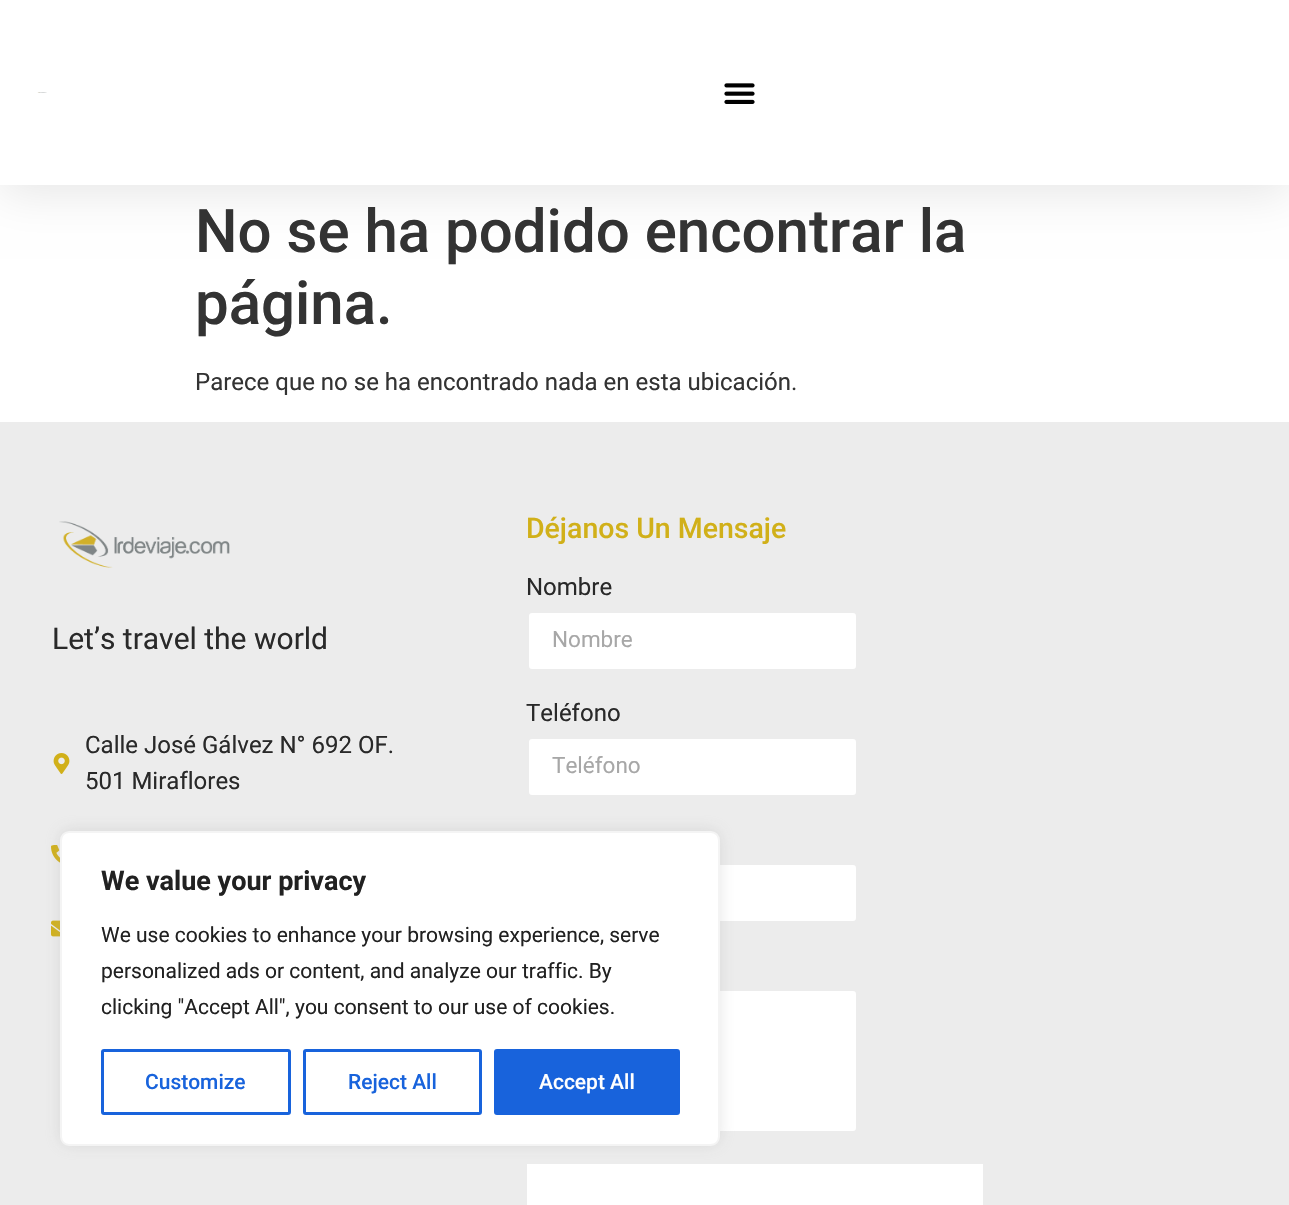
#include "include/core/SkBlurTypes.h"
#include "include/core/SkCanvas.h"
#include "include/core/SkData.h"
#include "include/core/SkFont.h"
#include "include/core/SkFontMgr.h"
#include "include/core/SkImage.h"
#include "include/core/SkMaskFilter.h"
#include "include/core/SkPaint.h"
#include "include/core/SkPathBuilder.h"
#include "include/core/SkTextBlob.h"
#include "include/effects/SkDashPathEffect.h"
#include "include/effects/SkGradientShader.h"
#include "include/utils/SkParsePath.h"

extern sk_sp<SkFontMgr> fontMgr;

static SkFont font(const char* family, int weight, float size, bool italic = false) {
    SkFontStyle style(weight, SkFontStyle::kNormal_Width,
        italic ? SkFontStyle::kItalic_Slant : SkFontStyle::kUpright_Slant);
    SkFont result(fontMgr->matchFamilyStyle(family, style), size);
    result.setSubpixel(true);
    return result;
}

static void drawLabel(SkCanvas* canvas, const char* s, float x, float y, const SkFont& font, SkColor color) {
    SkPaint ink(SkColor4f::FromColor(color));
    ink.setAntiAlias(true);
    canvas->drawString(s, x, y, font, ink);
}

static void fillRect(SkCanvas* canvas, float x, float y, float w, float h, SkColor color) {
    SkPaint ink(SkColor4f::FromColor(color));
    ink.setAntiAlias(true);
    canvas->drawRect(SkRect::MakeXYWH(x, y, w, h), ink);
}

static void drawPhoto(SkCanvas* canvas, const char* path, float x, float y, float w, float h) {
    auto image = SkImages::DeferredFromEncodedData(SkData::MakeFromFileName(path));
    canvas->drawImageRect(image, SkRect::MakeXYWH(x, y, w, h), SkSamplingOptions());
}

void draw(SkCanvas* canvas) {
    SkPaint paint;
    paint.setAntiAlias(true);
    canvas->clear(0xFFFFFFFF);
    paint.setColor(0x1A000000);
    paint.setMaskFilter(SkMaskFilter::MakeBlur(kNormal_SkBlurStyle, 22.5f));
    canvas->drawRect(SkRect::MakeXYWH(0, 8, 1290, 184), paint);
    paint.setMaskFilter(nullptr);
    fillRect(canvas, 0, 0, 1289, 185, 0xFFFFFFFF);
    drawPhoto(canvas, "assets/img1.png", 37, 92, 10, 1);
    drawPhoto(canvas, "assets/img2.png", 724, 83, 31, 21);
    SkFont font1 = font("Roboto", 500, 60);
    drawLabel(canvas, "No se ha podido encontrar la", 195, 252, font1, 0xFF333333);
    drawLabel(canvas, "página.", 195, 324, font1, 0xFF333333);
    SkFont font2 = font("Roboto", 400, 24);
    drawLabel(canvas, "Parece que no se ha encontrado nada en esta ubicación.", 195, 390, font2, 0xFF333333);
    fillRect(canvas, 0, 422, 1289, 783, 0xFFECECEC);
    drawPhoto(canvas, "assets/img3.png", 59, 521, 171, 47);
    SkFont font3 = font("Roboto", 400, 30);
    drawLabel(canvas, "Let’s travel the world", 52, 649, font3, 0xFF292929);
    drawPhoto(canvas, "assets/img4.png", 53, 753, 17, 21);
    drawLabel(canvas, "Calle José Gálvez N° 692 OF.", 85, 753, font2, 0xFF292929);
    drawLabel(canvas, "501 Miraflores", 85, 789, font2, 0xFF292929);
    drawPhoto(canvas, "assets/img5.png", 51, 845, 9, 18);
    drawPhoto(canvas, "assets/img6.png", 51, 920, 9, 17);
    SkFont font4 = font("Roboto", 500, 28.5f);
    drawLabel(canvas, "Déjanos Un Mensaje", 526, 538, font4, 0xFFD1B019);
    drawLabel(canvas, "Nombre", 526, 595, font2, 0xFF292929);
    paint.setColor(0xFFFFFFFF);
    canvas->drawRoundRect(SkRect::MakeXYWH(528, 612, 329, 58), 4, 4, paint);
    paint.setStroke(true);
    paint.setStrokeWidth(2);
    paint.setColor(0xFFECECEC);
    canvas->drawRoundRect(SkRect::MakeXYWH(528, 612, 329, 58), 4, 4, paint);
    SkFont font5 = font("Roboto", 400, 22.5f);
    drawLabel(canvas, "Nombre", 552, 647, font5, 0xFFA7A7A7);
    drawLabel(canvas, "Teléfono", 526, 721, font2, 0xFF292929);
    paint.setStroke(false);
    paint.setColor(0xFFFFFFFF);
    canvas->drawRoundRect(SkRect::MakeXYWH(528, 738, 329, 58), 4, 4, paint);
    paint.setStroke(true);
    paint.setColor(0xFFECECEC);
    canvas->drawRoundRect(SkRect::MakeXYWH(528, 738, 329, 58), 4, 4, paint);
    drawLabel(canvas, "Teléfono", 552, 773, font5, 0xFFA7A7A7);
    paint.setStroke(false);
    paint.setColor(0xFFFFFFFF);
    canvas->drawRoundRect(SkRect::MakeXYWH(528, 864, 329, 58), 4, 4, paint);
    paint.setStroke(true);
    paint.setColor(0xFFECECEC);
    canvas->drawRoundRect(SkRect::MakeXYWH(528, 864, 329, 58), 4, 4, paint);
    paint.setStroke(false);
    paint.setColor(0xFFFFFFFF);
    canvas->drawRoundRect(SkRect::MakeXYWH(528, 990, 329, 142), 4, 4, paint);
    paint.setStroke(true);
    paint.setColor(0xFFECECEC);
    canvas->drawRoundRect(SkRect::MakeXYWH(528, 990, 329, 142), 4, 4, paint);
    fillRect(canvas, 527, 1164, 456, 41, 0xFFFFFFFF);
    paint.setStroke(false);
    paint.setColor(0x4DACABAB);
    paint.setMaskFilter(SkMaskFilter::MakeBlur(kNormal_SkBlurStyle, 7.5f));
    canvas->drawRoundRect(SkRect::MakeXYWH(60, 830, 660, 315), 9, 9, paint);
    paint.setMaskFilter(nullptr);
    paint.setColor(0xFFFFFFFF);
    canvas->drawRoundRect(SkRect::MakeXYWH(61, 832, 658, 313), 8, 8, paint);
    paint.setStroke(true);
    paint.setColor(0xFFF4F4F4);
    canvas->drawRoundRect(SkRect::MakeXYWH(61, 832, 658, 313), 8, 8, paint);
    SkFont font6 = font("Roboto", 700, 27);
    drawLabel(canvas, "We value your privacy", 101, 890, font6, 0xFF212121);
    SkFont font7 = font("Roboto", 400, 21);
    drawLabel(canvas, "We use cookies to enhance your browsing experience, serve", 101, 942, font7, 0xFF212121);
    drawLabel(canvas, "personalized ads or content, and analyze our traffic. By", 101, 978, font7, 0xFF212121);
    drawLabel(canvas, "clicking \"Accept All\", you consent to our use of cookies.", 101, 1014, font7, 0xFF212121);
    paint.setStrokeWidth(3);
    paint.setColor(0xFF1863DC);
    canvas->drawRoundRect(SkRect::MakeXYWH(102.5f, 1050.5f, 187, 63), 1.5f, 1.5f, paint);
    SkFont font8 = font("Roboto", 500, 21);
    drawLabel(canvas, "Customize", 145, 1089, font8, 0xFF1863DC);
    canvas->drawRoundRect(SkRect::MakeXYWH(304.5f, 1050.5f, 176, 63), 1.5f, 1.5f, paint);
    drawLabel(canvas, "Reject All", 348, 1089, font8, 0xFF1863DC);
    paint.setStroke(false);
    canvas->drawRoundRect(SkRect::MakeXYWH(495.5f, 1050.5f, 183, 63), 1.5f, 1.5f, paint);
    paint.setStroke(true);
    canvas->drawRoundRect(SkRect::MakeXYWH(495.5f, 1050.5f, 183, 63), 1.5f, 1.5f, paint);
    drawLabel(canvas, "Accept All", 539, 1089, font8, 0xFFFFFFFF);
}
